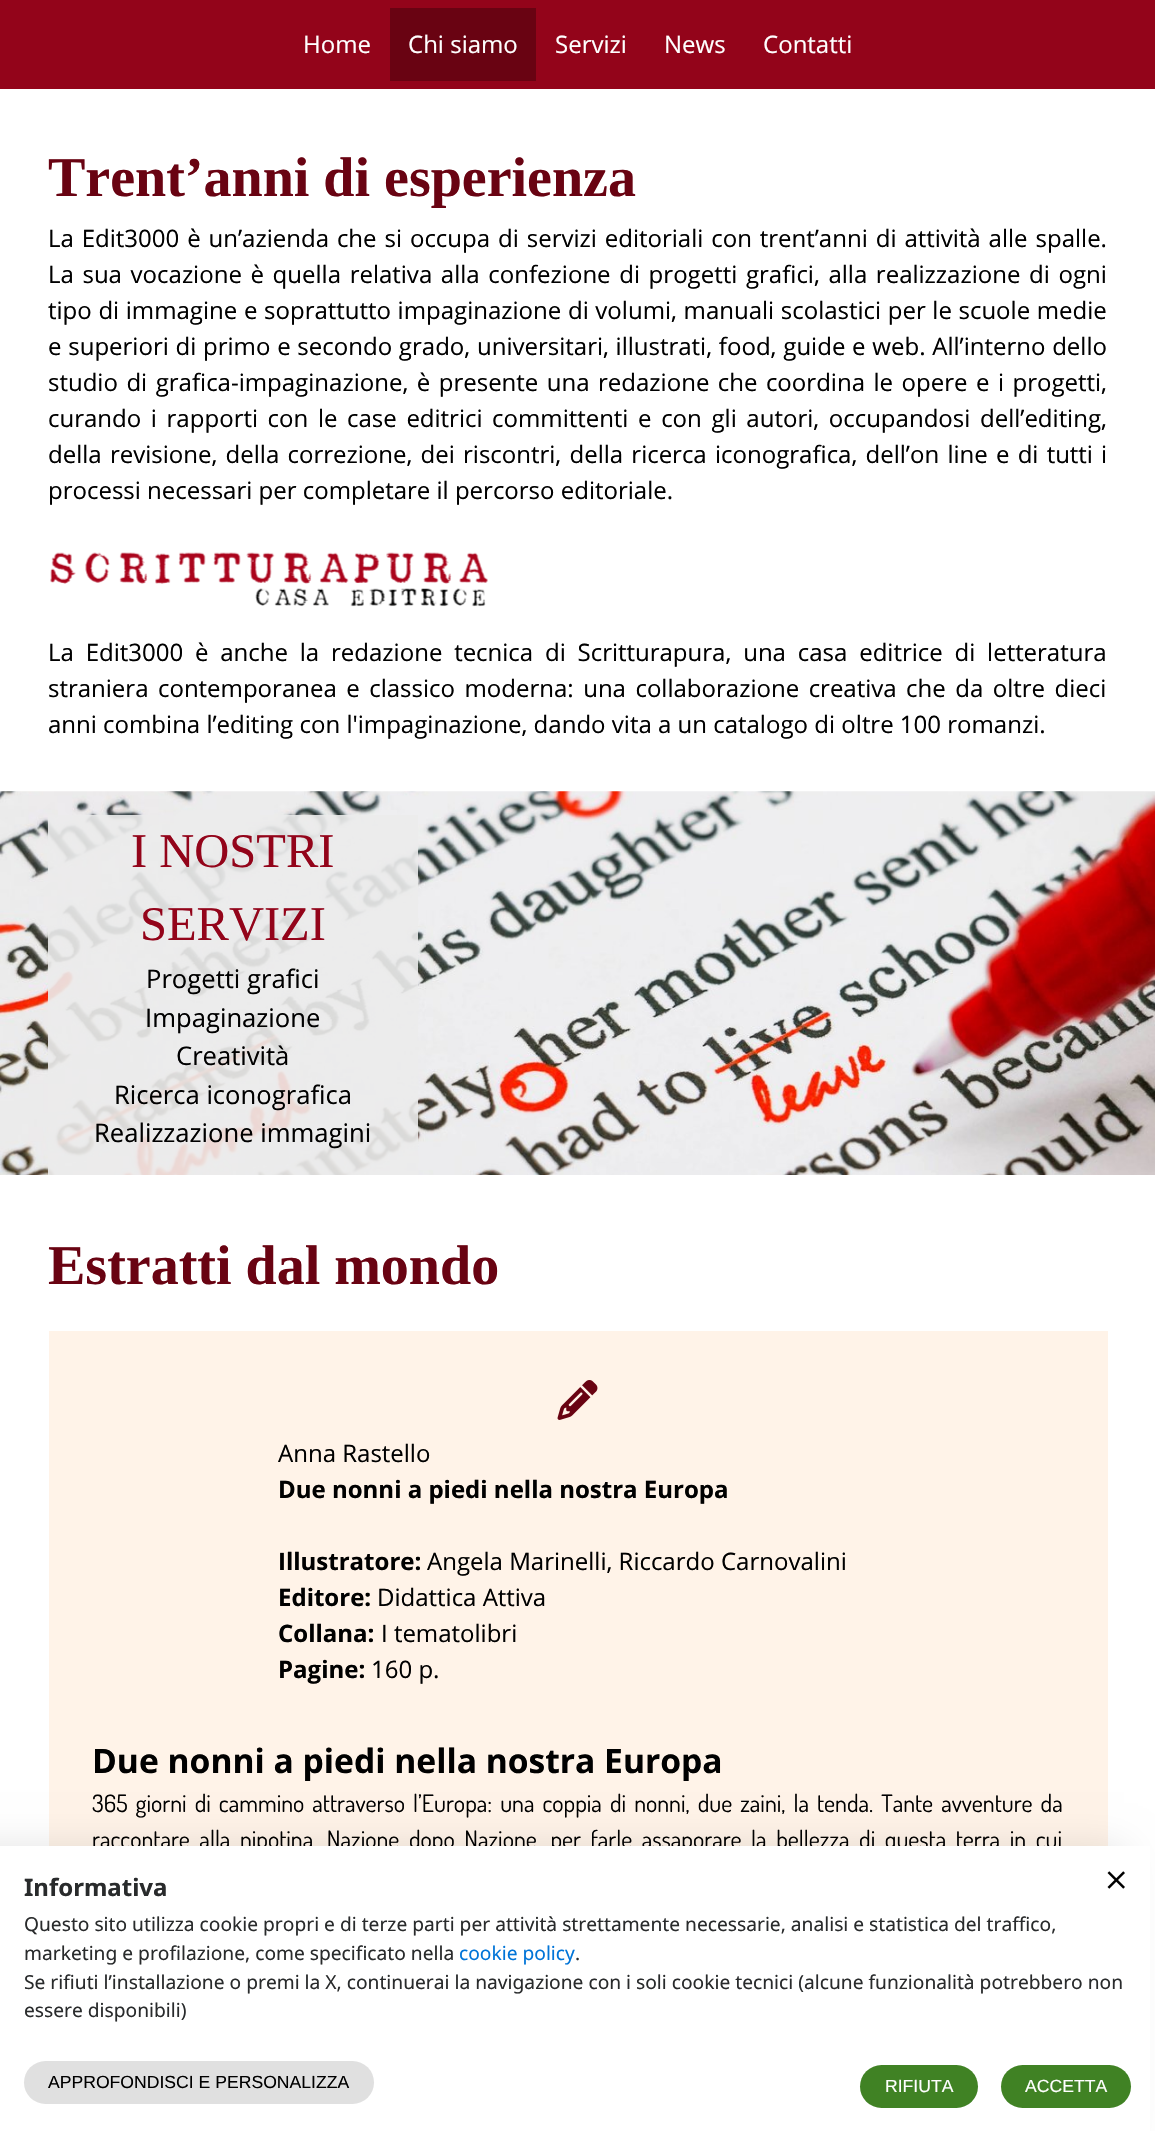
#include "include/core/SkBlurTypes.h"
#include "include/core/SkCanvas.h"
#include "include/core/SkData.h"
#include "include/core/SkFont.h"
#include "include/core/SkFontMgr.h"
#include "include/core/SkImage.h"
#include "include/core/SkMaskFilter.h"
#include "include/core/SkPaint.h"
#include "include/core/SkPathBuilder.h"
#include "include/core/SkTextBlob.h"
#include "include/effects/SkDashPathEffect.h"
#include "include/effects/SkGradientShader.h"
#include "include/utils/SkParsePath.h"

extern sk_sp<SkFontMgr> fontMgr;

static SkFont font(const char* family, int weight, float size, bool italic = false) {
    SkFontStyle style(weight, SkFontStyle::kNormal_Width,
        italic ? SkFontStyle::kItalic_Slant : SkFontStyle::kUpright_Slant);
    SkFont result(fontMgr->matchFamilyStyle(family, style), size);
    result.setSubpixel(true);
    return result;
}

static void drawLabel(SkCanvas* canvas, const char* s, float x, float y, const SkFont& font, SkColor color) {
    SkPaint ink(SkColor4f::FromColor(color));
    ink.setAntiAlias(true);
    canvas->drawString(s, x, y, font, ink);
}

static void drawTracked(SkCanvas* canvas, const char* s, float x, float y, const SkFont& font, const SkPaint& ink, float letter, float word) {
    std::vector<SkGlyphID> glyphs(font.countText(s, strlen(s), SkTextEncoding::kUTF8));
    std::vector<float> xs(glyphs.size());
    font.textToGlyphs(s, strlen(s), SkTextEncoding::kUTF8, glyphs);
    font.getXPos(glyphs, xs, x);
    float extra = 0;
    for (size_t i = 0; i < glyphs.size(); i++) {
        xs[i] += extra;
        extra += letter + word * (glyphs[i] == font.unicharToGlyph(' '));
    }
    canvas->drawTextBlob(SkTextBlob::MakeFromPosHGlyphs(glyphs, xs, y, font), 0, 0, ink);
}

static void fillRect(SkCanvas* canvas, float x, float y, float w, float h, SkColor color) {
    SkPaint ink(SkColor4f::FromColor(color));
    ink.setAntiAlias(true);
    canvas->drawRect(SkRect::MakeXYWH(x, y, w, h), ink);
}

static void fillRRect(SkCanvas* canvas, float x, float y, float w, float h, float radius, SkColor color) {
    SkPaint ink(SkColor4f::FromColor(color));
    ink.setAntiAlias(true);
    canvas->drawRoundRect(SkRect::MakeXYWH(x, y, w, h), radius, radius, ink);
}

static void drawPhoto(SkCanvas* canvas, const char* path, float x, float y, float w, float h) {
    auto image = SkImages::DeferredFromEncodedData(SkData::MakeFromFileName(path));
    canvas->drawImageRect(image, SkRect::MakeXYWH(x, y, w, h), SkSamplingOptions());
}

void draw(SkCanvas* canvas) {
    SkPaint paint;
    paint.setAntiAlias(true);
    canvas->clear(0xFFFFFFFF);
    fillRect(canvas, 0, 0, 1155, 89, 0xFF93041A);
    SkFont font1 = font("Open Sans", 400, 24);
    drawLabel(canvas, "Home", 303, 53, font1, 0xFFFFFFFF);
    fillRect(canvas, 390, 8, 146, 73, 0xFF690312);
    drawLabel(canvas, "Chi siamo", 408, 53, font1, 0xFFFFFFFF);
    drawLabel(canvas, "Servizi", 555, 53, font1, 0xFFFFFFFF);
    drawLabel(canvas, "News", 664, 53, font1, 0xFFFFFFFF);
    drawLabel(canvas, "Contatti", 763, 53, font1, 0xFFFFFFFF);
    SkFont font2 = font("Liberation Serif", 700, 56);
    drawLabel(canvas, "Trent’anni di esperienza", 48, 196, font2, 0xFF690312);
    paint.setColor(0xFF000000);
    drawTracked(canvas, "La Edit3000 è un’azienda che si occupa di servizi editoriali con trent’anni di attività alle spalle.", 48, 247, font1, paint, 0, 1.7f);
    drawTracked(canvas, "La sua vocazione è quella relativa alla confezione di progetti grafici, alla realizzazione di ogni", 48, 283, font1, paint, 0, 2.4f);
    drawTracked(canvas, "tipo di immagine e soprattutto impaginazione di volumi, manuali scolastici per le scuole medie", 48, 319, font1, paint, 0, 0.4f);
    drawTracked(canvas, "e superiori di primo e secondo grado, universitari, illustrati, food, guide e web. All’interno dello", 48, 355, font1, paint, 0, 0.5f);
    drawTracked(canvas, "studio di grafica-impaginazione, è presente una redazione che coordina le opere e i progetti,", 48, 391, font1, paint, 0, 2.25f);
    drawTracked(canvas, "curando i rapporti con le case editrici committenti e con gli autori, occupandosi dell’editing,", 48, 427, font1, paint, 0, 3.4f);
    drawTracked(canvas, "della revisione, della correzione, dei riscontri, della ricerca iconografica, dell’on line e di tutti i", 48, 463, font1, paint, 0, 2);
    drawLabel(canvas, "processi necessari per completare il percorso editoriale.", 48, 499, font1, 0xFF000000);
    drawPhoto(canvas, "assets/img1.png", 50, 552, 438, 55);
    drawTracked(canvas, "La Edit3000 è anche la redazione tecnica di Scritturapura, una casa editrice di letteratura", 48, 661, font1, paint, 0, 5.6f);
    drawTracked(canvas, "straniera contemporanea e classico moderna: una collaborazione creativa che da oltre dieci", 48, 697, font1, paint, 0, 3.25f);
    drawLabel(canvas, "anni combina l’editing con l'impaginazione, dando vita a un catalogo di oltre 100 romanzi.", 48, 733, font1, 0xFF000000);
    drawPhoto(canvas, "assets/img2.png", 0, 791, 1155, 384);
    fillRect(canvas, 48, 815, 370, 360, 0xE6EBEBEB);
    SkFont font3 = font("Liberation Serif", 400, 48.5f);
    drawLabel(canvas, "I NOSTRI", 131, 867, font3, 0xFF93041A);
    drawLabel(canvas, "SERVIZI", 140, 940, font3, 0xFF93041A);
    SkFont font4 = font("Open Sans", 400, 25.6f);
    drawLabel(canvas, "Progetti grafici", 146, 988, font4, 0xFF000000);
    drawLabel(canvas, "Impaginazione", 145, 1027, font4, 0xFF000000);
    drawLabel(canvas, "Creatività", 176, 1065, font4, 0xFF000000);
    drawLabel(canvas, "Ricerca iconografica", 114, 1104, font4, 0xFF000000);
    drawLabel(canvas, "Realizzazione immagini", 94, 1142, font4, 0xFF000000);
    drawLabel(canvas, "Estratti dal mondo", 48, 1284, font2, 0xFF690312);
    fillRect(canvas, 49, 1331, 1059, 515, 0xFFFFF3E8);
    drawPhoto(canvas, "assets/img3.png", 557, 1380, 41, 40);
    drawLabel(canvas, "Anna Rastello", 278, 1462, font1, 0xFF000000);
    SkFont font5 = font("Open Sans", 700, 24);
    drawLabel(canvas, "Due nonni a piedi nella nostra Europa", 278, 1498, font5, 0xFF000000);
    drawLabel(canvas, "Illustratore:", 278, 1570, font5, 0xFF000000);
    drawLabel(canvas, "Angela Marinelli, Riccardo Carnovalini", 427, 1570, font1, 0xFF000000);
    drawLabel(canvas, "Editore:", 278, 1606, font5, 0xFF000000);
    drawLabel(canvas, "Didattica Attiva", 377, 1606, font1, 0xFF000000);
    drawLabel(canvas, "Collana:", 278, 1642, font5, 0xFF000000);
    drawLabel(canvas, "I tematolibri", 381, 1642, font1, 0xFF000000);
    drawLabel(canvas, "Pagine:", 278, 1678, font5, 0xFF000000);
    drawLabel(canvas, "160 p.", 371, 1678, font1, 0xFF000000);
    SkFont font6 = font("Open Sans", 700, 33.6f);
    drawLabel(canvas, "Due nonni a piedi nella nostra Europa", 92, 1773, font6, 0xFF000000);
    SkFont font7 = font("Dosis", 400, 24);
    drawTracked(canvas, "365 giorni di cammino attraverso l’Europa: una coppia di nonni, due zaini, la tenda. Tante avventure da", 92, 1812, font7, paint, 0, 3.25f);
    drawTracked(canvas, "raccontare alla nipotina, Nazione dopo Nazione, per farle assaporare la bellezza di questa terra in cui", 92, 1848, font7, paint, 0, 4.75f);
    paint.setColor(0x1F000000);
    paint.setMaskFilter(SkMaskFilter::MakeBlur(kNormal_SkBlurStyle, 19));
    canvas->drawRect(SkRect::MakeXYWH(-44, 1849, 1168, 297), paint);
    paint.setMaskFilter(nullptr);
    fillRect(canvas, 0, 1846, 1150, 285, 0xFFFFFFFF);
    SkFont font8 = font("Noto Sans", 700, 24);
    drawLabel(canvas, "Informativa", 24, 1896, font8, 0xFF292B2C);
    drawPhoto(canvas, "assets/img4.png", 1107, 1871, 18, 18);
    SkFont font9 = font("Noto Sans", 400, 19.2f);
    drawLabel(canvas, "Questo sito utilizza cookie propri e di terze parti per attività strettamente necessarie, analisi e statistica del traffico,", 24, 1931, font9, 0xFF292B2C);
    drawLabel(canvas, "marketing e profilazione, come specificato nella", 24, 1960, font9, 0xFF292B2C);
    drawLabel(canvas, "cookie policy", 459, 1960, font9, 0xFF0275D8);
    drawLabel(canvas, ".", 575, 1960, font9, 0xFF292B2C);
    drawLabel(canvas, "Se rifiuti l’installazione o premi la X, continuerai la navigazione con i soli cookie tecnici (alcune funzionalità potrebbero non", 24, 1989, font9, 0xFF292B2C);
    drawLabel(canvas, "essere disponibili)", 24, 2017, font9, 0xFF292B2C);
    fillRRect(canvas, 24, 2061, 350, 43, 21.5f, 0xFFE0E0E0);
    SkFont font10 = font("Liberation Sans", 400, 17.6f);
    drawLabel(canvas, "APPROFONDISCI E PERSONALIZZA", 48, 2088, font10, 0xFF000000);
    fillRRect(canvas, 860, 2065, 118, 43, 21.5f, 0xFF408224);
    drawLabel(canvas, "RIFIUTA", 885, 2092, font10, 0xFFFFFFFF);
    fillRRect(canvas, 1001, 2065, 130, 43, 21.5f, 0xFF408224);
    drawLabel(canvas, "ACCETTA", 1025, 2092, font10, 0xFFFFFFFF);
}
